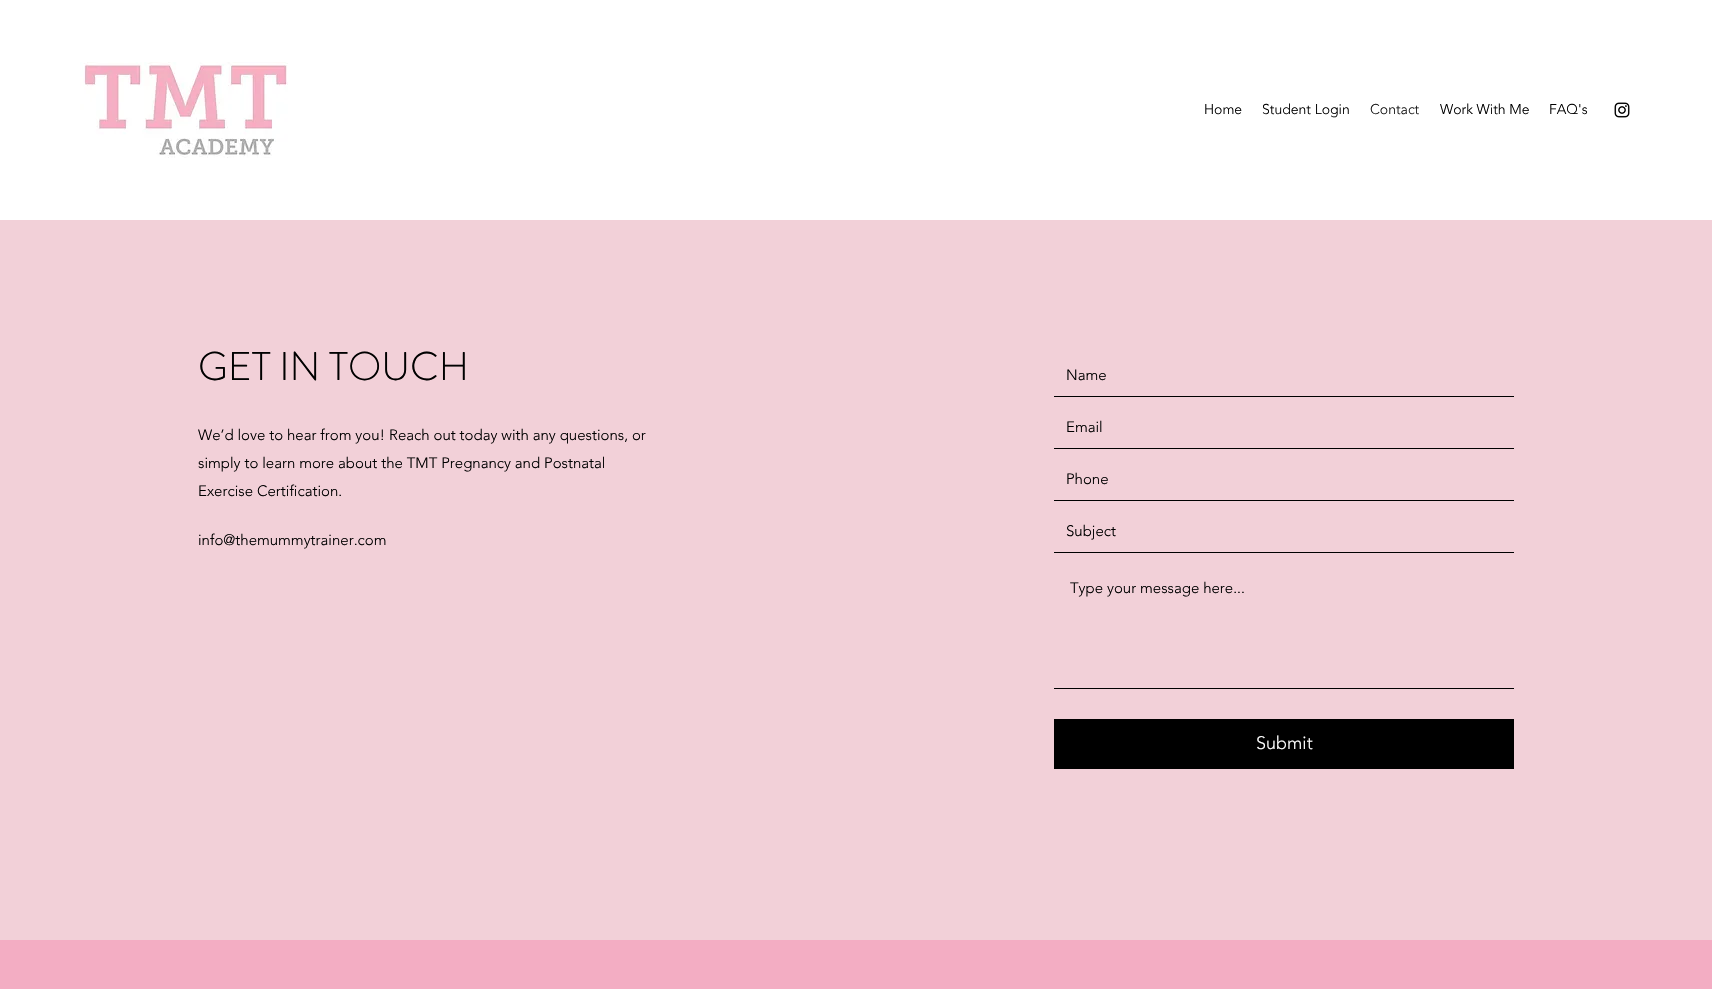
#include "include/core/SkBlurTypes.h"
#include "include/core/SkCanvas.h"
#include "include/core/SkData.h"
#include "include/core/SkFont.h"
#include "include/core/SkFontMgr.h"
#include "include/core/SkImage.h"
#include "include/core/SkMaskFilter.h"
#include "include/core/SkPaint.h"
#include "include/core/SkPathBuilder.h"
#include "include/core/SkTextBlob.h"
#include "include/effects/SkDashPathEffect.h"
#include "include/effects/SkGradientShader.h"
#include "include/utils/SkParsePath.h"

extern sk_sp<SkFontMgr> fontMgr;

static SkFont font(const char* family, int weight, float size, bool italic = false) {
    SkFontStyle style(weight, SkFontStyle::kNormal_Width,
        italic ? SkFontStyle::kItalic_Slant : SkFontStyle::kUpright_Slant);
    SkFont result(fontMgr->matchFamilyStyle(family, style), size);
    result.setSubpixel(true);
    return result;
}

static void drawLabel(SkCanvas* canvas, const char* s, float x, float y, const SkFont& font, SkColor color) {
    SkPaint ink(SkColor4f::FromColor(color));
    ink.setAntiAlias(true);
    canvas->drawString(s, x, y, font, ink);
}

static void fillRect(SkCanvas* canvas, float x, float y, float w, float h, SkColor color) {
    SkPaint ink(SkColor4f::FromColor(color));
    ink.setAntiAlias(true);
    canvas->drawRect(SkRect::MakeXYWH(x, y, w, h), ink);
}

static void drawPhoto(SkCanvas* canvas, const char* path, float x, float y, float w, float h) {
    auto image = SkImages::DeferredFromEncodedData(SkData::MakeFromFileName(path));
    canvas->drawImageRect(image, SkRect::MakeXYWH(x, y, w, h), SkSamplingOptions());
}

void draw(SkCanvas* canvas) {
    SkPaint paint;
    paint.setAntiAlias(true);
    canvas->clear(0xFFFFFFFF);
    drawPhoto(canvas, "assets/img1.png", 80, 62, 208, 96);
    SkFont font1 = font("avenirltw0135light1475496", 300, 14);
    drawLabel(canvas, "Home", 1204, 114, font1, 0xFF000000);
    drawLabel(canvas, "Student Login", 1262, 114, font1, 0xFF000000);
    drawLabel(canvas, "Contact", 1370, 114, font1, 0xFF161616);
    drawLabel(canvas, "Work With Me", 1440, 114, font1, 0xFF000000);
    drawLabel(canvas, "FAQ's", 1549, 114, font1, 0xFF000000);
    drawPhoto(canvas, "assets/img2.png", 1614, 102, 16, 16);
    fillRect(canvas, 0, 220, 1712, 720, 0xFFF2D0D8);
    SkFont font2 = font("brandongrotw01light", 300, 40);
    drawLabel(canvas, "GET IN TOUCH", 198, 380, font2, 0xFF000000);
    SkFont font3 = font("avenirltw0135light1475496", 300, 15);
    drawLabel(canvas, "We’d love to hear from you! Reach out today with any questions, or", 198, 440, font3, 0xFF000000);
    drawLabel(canvas, "simply to learn more about the TMT Pregnancy and Postnatal", 198, 468, font3, 0xFF000000);
    drawLabel(canvas, "Exercise Certification.", 198, 496, font3, 0xFF000000);
    drawLabel(canvas, "info@themummytrainer.com", 198, 545, font3, 0xFF000000);
    fillRect(canvas, 1054, 396, 460, 1, 0xFF000000);
    drawLabel(canvas, "Name", 1066, 380, font3, 0xFF000000);
    fillRect(canvas, 1054, 448, 460, 1, 0xFF000000);
    drawLabel(canvas, "Email", 1066, 432, font3, 0xFF000000);
    fillRect(canvas, 1054, 500, 460, 1, 0xFF000000);
    drawLabel(canvas, "Phone", 1066, 484, font3, 0xFF000000);
    fillRect(canvas, 1054, 552, 460, 1, 0xFF000000);
    drawLabel(canvas, "Subject", 1066, 536, font3, 0xFF000000);
    fillRect(canvas, 1054, 688, 460, 1, 0xFF000000);
    drawLabel(canvas, "Type your message here...", 1070, 593, font3, 0xFF000000);
    fillRect(canvas, 1054, 719, 460, 50, 0xFF000000);
    SkFont font4 = font("avenirltw0135light1475496", 300, 18);
    drawLabel(canvas, "Submit", 1256, 749, font4, 0xFFFFFFFF);
    fillRect(canvas, 0, 940, 1712, 49, 0xFFF3ADC3);
}
